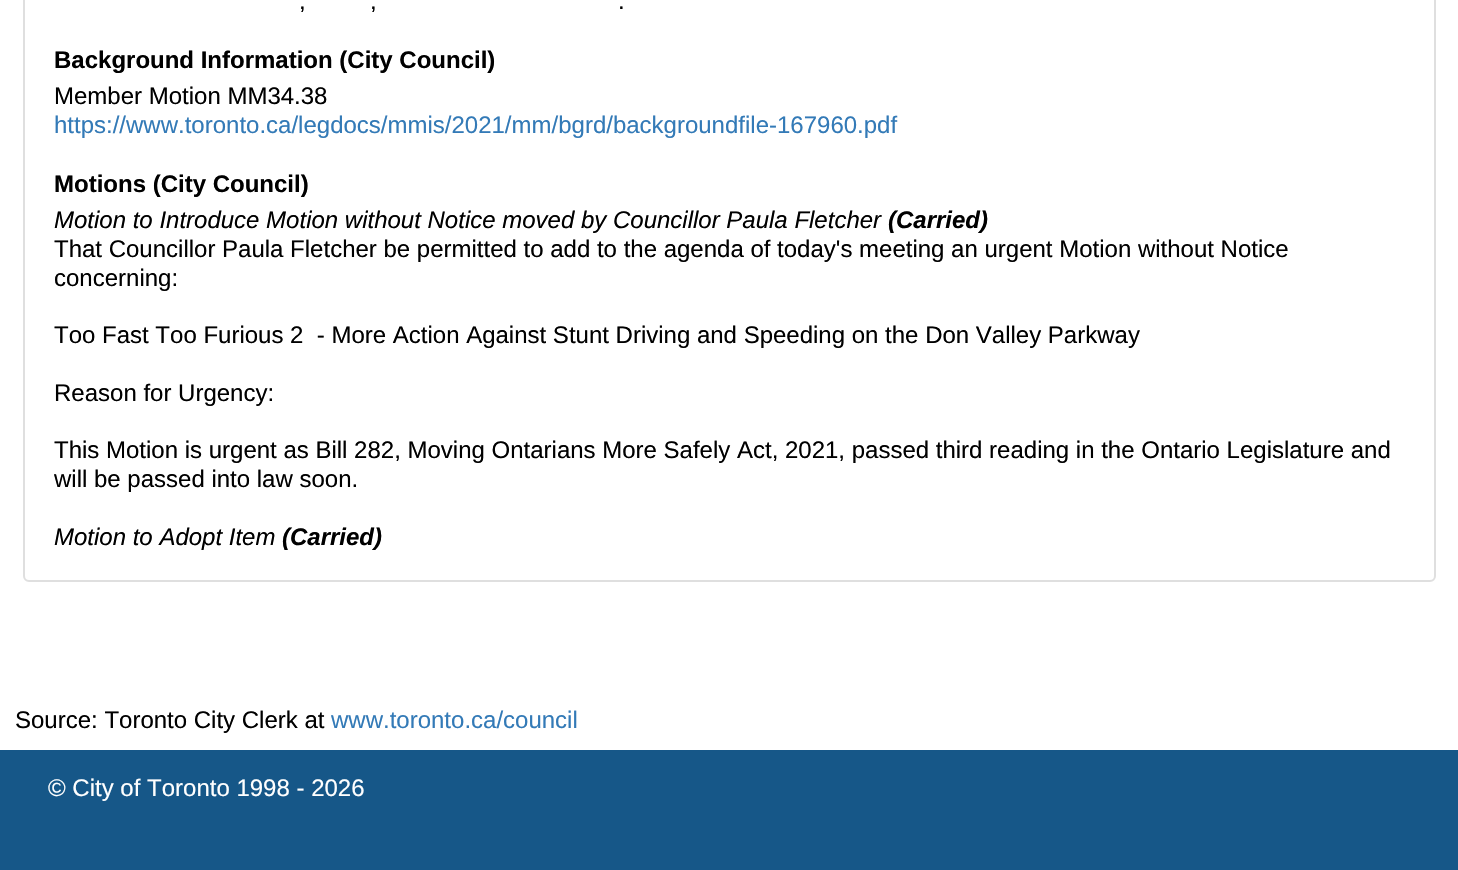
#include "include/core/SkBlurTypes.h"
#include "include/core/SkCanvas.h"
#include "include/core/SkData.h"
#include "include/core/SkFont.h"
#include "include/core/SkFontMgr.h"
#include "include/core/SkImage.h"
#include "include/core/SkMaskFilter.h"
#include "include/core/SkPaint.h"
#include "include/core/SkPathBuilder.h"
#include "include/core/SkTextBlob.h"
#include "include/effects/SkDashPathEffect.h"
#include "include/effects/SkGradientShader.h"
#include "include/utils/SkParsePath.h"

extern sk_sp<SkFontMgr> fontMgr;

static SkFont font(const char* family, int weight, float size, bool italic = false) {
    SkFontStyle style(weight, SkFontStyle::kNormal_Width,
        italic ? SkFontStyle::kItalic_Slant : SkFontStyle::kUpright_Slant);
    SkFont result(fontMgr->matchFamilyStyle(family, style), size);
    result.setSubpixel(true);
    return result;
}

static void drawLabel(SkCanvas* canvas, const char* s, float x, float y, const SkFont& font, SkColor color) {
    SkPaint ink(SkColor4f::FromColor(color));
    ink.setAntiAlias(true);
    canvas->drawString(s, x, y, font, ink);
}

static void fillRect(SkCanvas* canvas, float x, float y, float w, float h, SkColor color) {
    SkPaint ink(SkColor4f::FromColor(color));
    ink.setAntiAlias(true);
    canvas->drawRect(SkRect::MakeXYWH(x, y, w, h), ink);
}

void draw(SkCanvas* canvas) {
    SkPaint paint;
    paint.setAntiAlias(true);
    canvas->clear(0xFFFFFFFF);
    paint.setStroke(true);
    paint.setStrokeWidth(2);
    paint.setColor(0xFFDFDFDF);
    canvas->drawRoundRect(SkRect::MakeXYWH(24, -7, 1411, 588), 5, 5, paint);
    SkFont font1 = font("Liberation Sans", 400, 24);
    drawLabel(canvas, ",", 299, 9, font1, 0xFF000000);
    drawLabel(canvas, ",", 370, 9, font1, 0xFF000000);
    drawLabel(canvas, ".", 618, 9, font1, 0xFF000000);
    SkFont font2 = font("Liberation Sans", 700, 24);
    drawLabel(canvas, "Background Information (City Council)", 54, 68, font2, 0xFF000000);
    drawLabel(canvas, "Member Motion MM34.38", 54, 104, font1, 0xFF000000);
    drawLabel(canvas, "https://www.toronto.ca/legdocs/mmis/2021/mm/bgrd/backgroundfile-167960.pdf", 54, 133, font1, 0xFF337AB7);
    drawLabel(canvas, "Motions (City Council)", 54, 192, font2, 0xFF000000);
    SkFont font3 = font("Liberation Sans", 400, 24, true);
    drawLabel(canvas, "Motion to Introduce Motion without Notice moved by Councillor Paula Fletcher", 54, 228, font3, 0xFF000000);
    SkFont font4 = font("Liberation Sans", 700, 24, true);
    drawLabel(canvas, "(Carried)", 888, 228, font4, 0xFF000000);
    drawLabel(canvas, "That Councillor Paula Fletcher be permitted to add to the agenda of today's meeting an urgent Motion without Notice", 54, 257, font1, 0xFF000000);
    drawLabel(canvas, "concerning:", 54, 286, font1, 0xFF000000);
    drawLabel(canvas, "Too Fast Too Furious 2  - More Action Against Stunt Driving and Speeding on the Don Valley Parkway", 54, 343, font1, 0xFF000000);
    drawLabel(canvas, "Reason for Urgency:", 54, 401, font1, 0xFF000000);
    drawLabel(canvas, "This Motion is urgent as Bill 282, Moving Ontarians More Safely Act, 2021, passed third reading in the Ontario Legislature and", 54, 458, font1, 0xFF000000);
    drawLabel(canvas, "will be passed into law soon.", 54, 487, font1, 0xFF000000);
    drawLabel(canvas, "Motion to Adopt Item", 54, 545, font3, 0xFF000000);
    drawLabel(canvas, "(Carried)", 282, 545, font4, 0xFF000000);
    drawLabel(canvas, "Source: Toronto City Clerk at", 15, 728, font1, 0xFF000000);
    drawLabel(canvas, "www.toronto.ca/council", 331, 728, font1, 0xFF337AB7);
    fillRect(canvas, 0, 750, 1458, 120, 0xFF165788);
    drawLabel(canvas, "© City of Toronto 1998 - 2026", 48, 796, font1, 0xFFFFFFFF);
}
